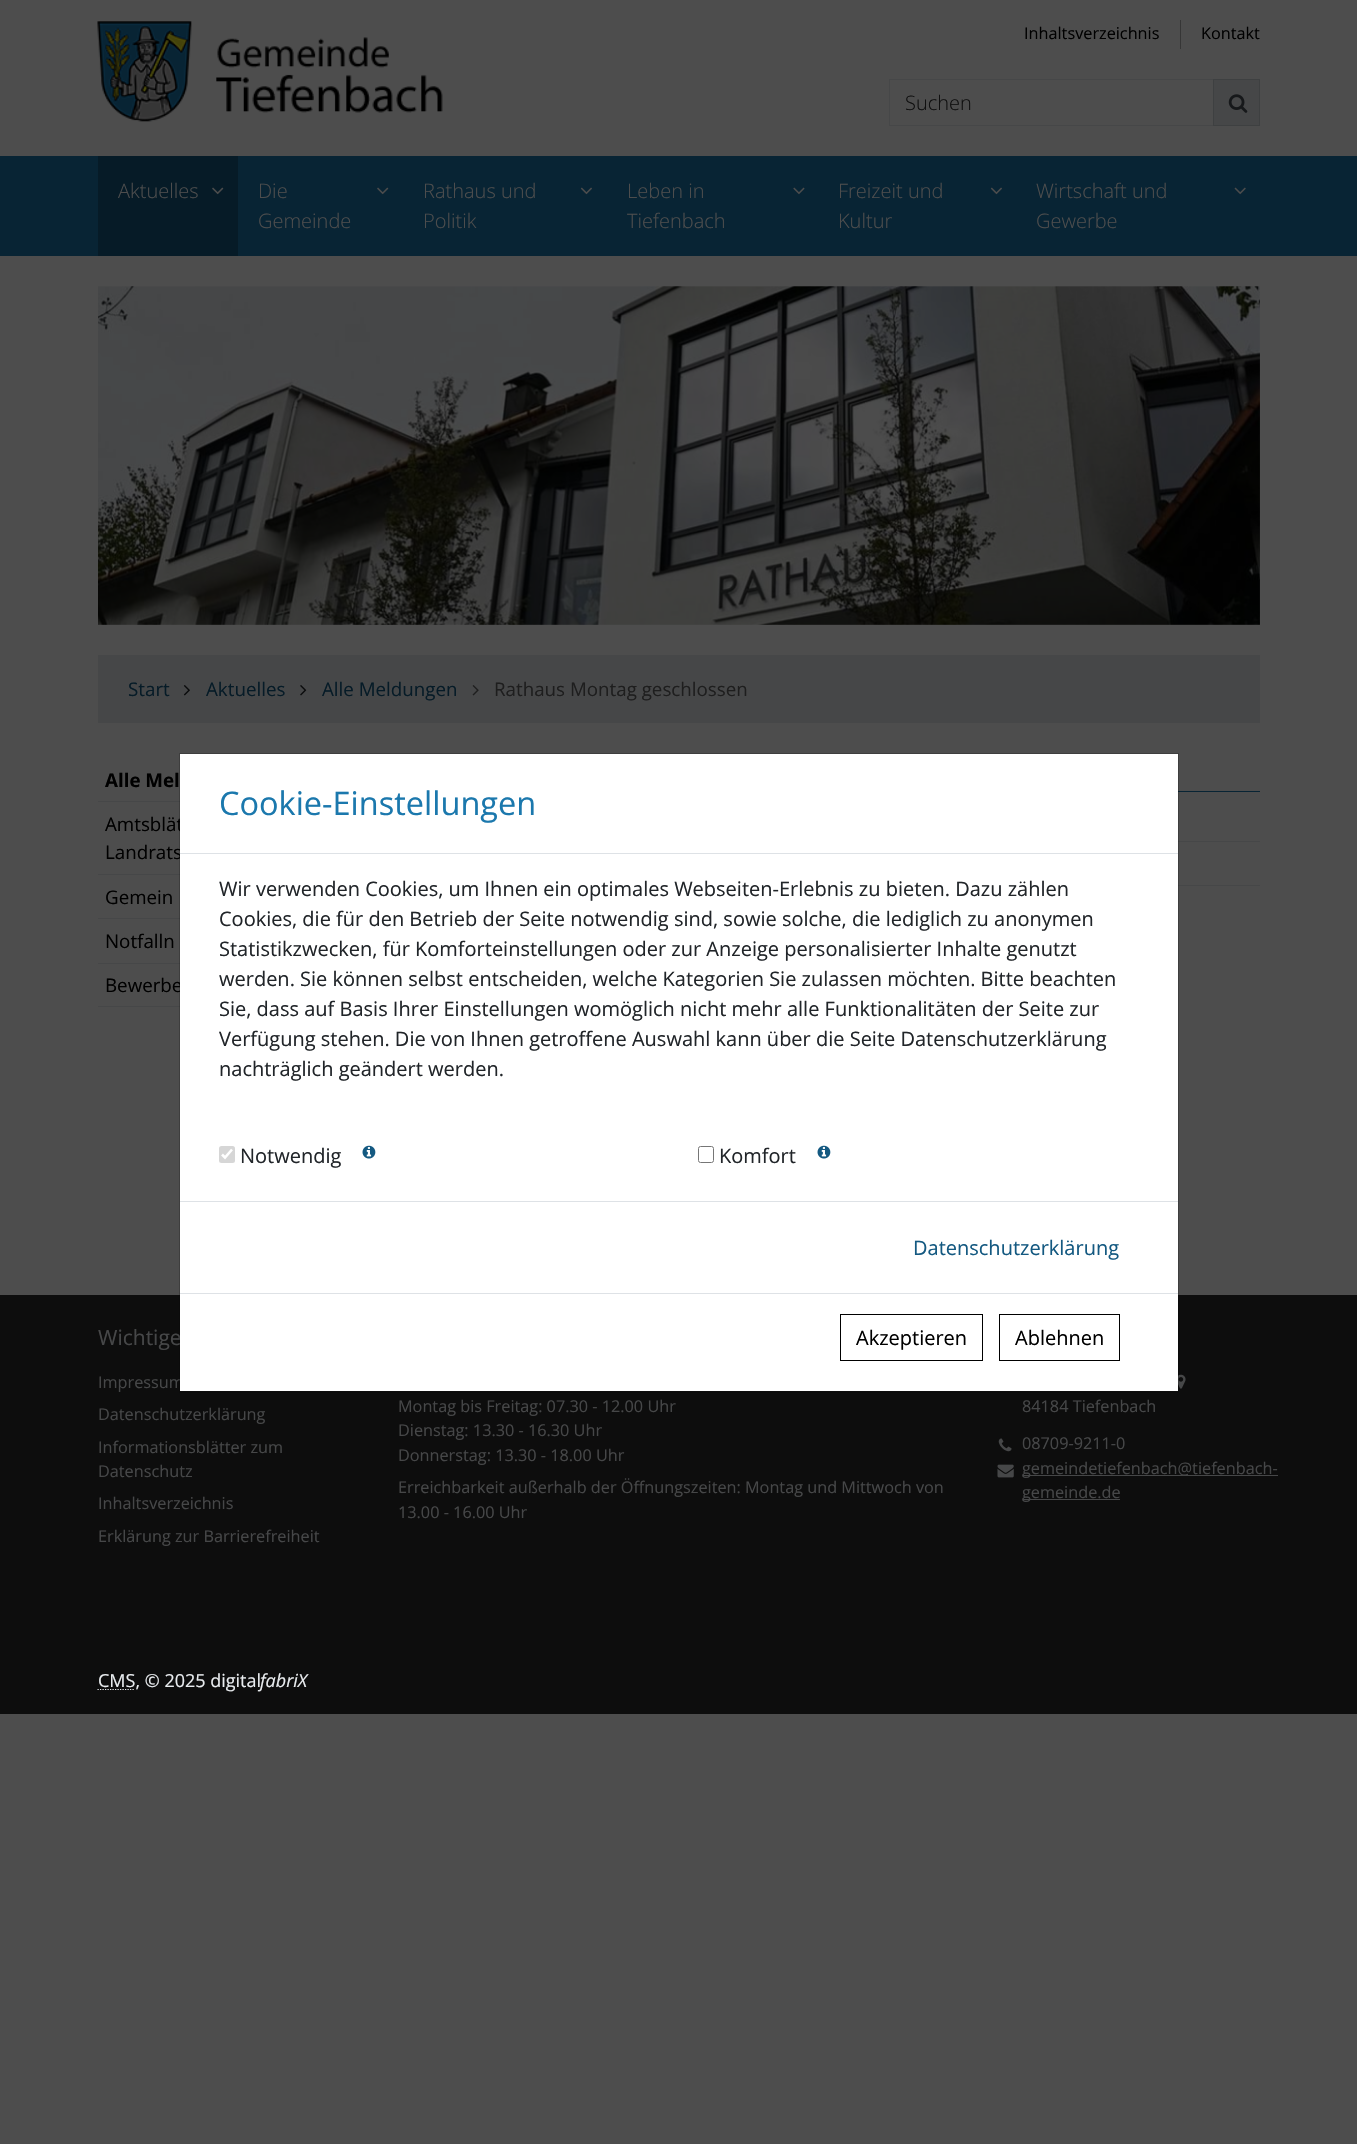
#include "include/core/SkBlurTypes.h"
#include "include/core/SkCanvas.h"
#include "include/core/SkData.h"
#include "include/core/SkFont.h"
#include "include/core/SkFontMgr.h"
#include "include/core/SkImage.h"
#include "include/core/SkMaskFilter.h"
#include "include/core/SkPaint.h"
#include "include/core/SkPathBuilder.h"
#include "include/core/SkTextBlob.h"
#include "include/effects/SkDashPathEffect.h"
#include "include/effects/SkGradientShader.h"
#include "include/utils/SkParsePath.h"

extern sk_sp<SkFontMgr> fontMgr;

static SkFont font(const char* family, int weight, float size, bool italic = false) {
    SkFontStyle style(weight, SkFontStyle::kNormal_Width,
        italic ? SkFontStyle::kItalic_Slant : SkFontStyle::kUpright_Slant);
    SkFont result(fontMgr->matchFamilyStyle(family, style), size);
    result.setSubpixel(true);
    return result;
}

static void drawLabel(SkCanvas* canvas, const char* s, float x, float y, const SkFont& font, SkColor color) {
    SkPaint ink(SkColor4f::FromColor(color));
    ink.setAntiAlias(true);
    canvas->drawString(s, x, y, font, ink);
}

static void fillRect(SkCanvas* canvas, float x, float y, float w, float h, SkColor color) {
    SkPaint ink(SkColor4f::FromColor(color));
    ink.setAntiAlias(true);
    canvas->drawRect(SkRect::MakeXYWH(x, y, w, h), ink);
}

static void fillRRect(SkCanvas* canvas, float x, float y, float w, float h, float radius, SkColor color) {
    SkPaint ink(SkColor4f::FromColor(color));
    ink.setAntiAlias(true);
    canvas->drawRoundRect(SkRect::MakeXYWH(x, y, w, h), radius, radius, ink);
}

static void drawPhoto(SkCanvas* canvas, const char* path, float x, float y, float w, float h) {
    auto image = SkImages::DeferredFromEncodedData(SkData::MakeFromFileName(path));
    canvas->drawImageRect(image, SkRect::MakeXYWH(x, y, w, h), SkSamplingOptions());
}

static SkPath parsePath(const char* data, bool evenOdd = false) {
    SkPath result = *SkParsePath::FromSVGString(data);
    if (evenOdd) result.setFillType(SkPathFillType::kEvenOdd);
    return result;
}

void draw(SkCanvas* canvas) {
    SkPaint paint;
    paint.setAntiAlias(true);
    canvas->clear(0xFF4D4D4D);
    drawPhoto(canvas, "assets/img1.png", 97, 21, 346, 101);
    fillRect(canvas, 1180, 20, 1, 29, 0xFF363636);
    SkFont font1 = font("Open Sans", 400, 16.25f);
    drawLabel(canvas, "Inhaltsverzeichnis", 1024, 39, font1, 0xFF000000);
    drawLabel(canvas, "Kontakt", 1201, 39, font1, 0xFF000000);
    paint.setStroke(true);
    paint.setStrokeWidth(1);
    paint.setColor(0xFF464748);
    canvas->drawRect(SkRect::MakeXYWH(889.5f, 79.5f, 328, 46), paint);
    SkFont font2 = font("Open Sans", 300, 20);
    drawLabel(canvas, "Suchen", 905, 110, font2, 0xFF0F0F0F);
    paint.setStroke(false);
    canvas->drawRect(SkRect::MakeXYWH(1213.5f, 79.5f, 46, 46), paint);
    paint.setStroke(true);
    paint.setColor(0xFF3E4041);
    canvas->drawRect(SkRect::MakeXYWH(1213.5f, 79.5f, 46, 46), paint);
    drawPhoto(canvas, "assets/img2.png", 1228, 94, 20, 19);
    fillRect(canvas, 0, 156, 1357, 100, 0xFF082434);
    fillRect(canvas, 98, 156, 140, 100, 0xFF061B27);
    drawLabel(canvas, "Aktuelles", 118, 198, font2, 0xFF4D4D4D);
    drawPhoto(canvas, "assets/img3.png", 212, 187, 12, 8);
    drawLabel(canvas, "Die", 258, 198, font2, 0xFF4D4D4D);
    drawLabel(canvas, "Gemeinde", 258, 228, font2, 0xFF4D4D4D);
    drawPhoto(canvas, "assets/img4.png", 377, 187, 12, 8);
    drawLabel(canvas, "Rathaus und", 423, 198, font2, 0xFF4D4D4D);
    drawLabel(canvas, "Politik", 423, 228, font2, 0xFF4D4D4D);
    drawPhoto(canvas, "assets/img5.png", 580, 187, 12, 8);
    drawLabel(canvas, "Leben in", 627, 198, font2, 0xFF4D4D4D);
    drawLabel(canvas, "Tiefenbach", 627, 228, font2, 0xFF4D4D4D);
    drawPhoto(canvas, "assets/img6.png", 793, 187, 12, 8);
    drawLabel(canvas, "Freizeit und", 838, 198, font2, 0xFF4D4D4D);
    drawLabel(canvas, "Kultur", 838, 228, font2, 0xFF4D4D4D);
    drawPhoto(canvas, "assets/img5.png", 990, 187, 12, 8);
    drawLabel(canvas, "Wirtschaft und", 1036, 198, font2, 0xFF4D4D4D);
    drawLabel(canvas, "Gewerbe", 1036, 228, font2, 0xFF4D4D4D);
    drawPhoto(canvas, "assets/img7.png", 1234, 187, 12, 8);
    drawPhoto(canvas, "assets/img8.png", 98, 286, 1162, 339);
    fillRect(canvas, 98, 655, 1162, 68, 0xFF464748);
    SkFont font3 = font("Open Sans", 400, 18.75f);
    drawLabel(canvas, "Start", 128, 696, font3, 0xFF061B27);
    drawPhoto(canvas, "assets/img9.png", 183, 685, 7, 11);
    drawLabel(canvas, "Aktuelles", 206, 696, font3, 0xFF061B27);
    drawPhoto(canvas, "assets/img10.png", 300, 685, 7, 11);
    drawLabel(canvas, "Alle Meldungen", 322, 696, font3, 0xFF061B27);
    drawPhoto(canvas, "assets/img11.png", 472, 685, 7, 11);
    drawLabel(canvas, "Rathaus Montag geschlossen", 494, 696, font3, 0xFF1E1E1E);
    fillRect(canvas, 98, 801, 82, 1, 0xFF464748);
    SkFont font4 = font("Open Sans", 700, 18.75f);
    drawLabel(canvas, "Alle Mel", 105, 787, font4, 0xFF000000);
    fillRect(canvas, 98, 874, 82, 1, 0xFF464748);
    drawLabel(canvas, "Amtsblät", 105, 831, font3, 0xFF000000);
    drawLabel(canvas, "Landrats", 105, 859, font3, 0xFF000000);
    fillRect(canvas, 98, 918, 82, 1, 0xFF464748);
    drawLabel(canvas, "Gemein", 105, 904, font3, 0xFF000000);
    fillRect(canvas, 98, 963, 82, 1, 0xFF464748);
    drawLabel(canvas, "Notfalln", 105, 948, font3, 0xFF000000);
    fillRect(canvas, 98, 1006, 82, 1, 0xFF464748);
    drawLabel(canvas, "Bewerbe", 105, 992, font3, 0xFF000000);
    fillRect(canvas, 1178, 791, 82, 1, 0xFF082434);
    fillRect(canvas, 1178, 841, 82, 1, 0xFF464748);
    fillRect(canvas, 1178, 885, 82, 1, 0xFF464748);
    fillRect(canvas, 0, 1295, 1357, 419, 0xFF0D0D0D);
    SkFont font5 = font("Open Sans", 400, 21);
    drawLabel(canvas, "Wichtige", 98, 1345, font5, 0xFF464748);
    drawLabel(canvas, "Impressum", 98, 1388, font1, 0xFF464748);
    fillRect(canvas, 180, 754, 998, 637, 0xFFFFFFFF);
    drawPhoto(canvas, "assets/img13.png", 1178, 1374, 8, 15);
    paint.setColor(0x33000000);
    canvas->drawRect(SkRect::MakeXYWH(179.5f, 753.5f, 999, 639), paint);
    fillRect(canvas, 180, 853, 998, 1, 0xFFDEE2E6);
    SkFont font6 = font("Open Sans", 400, 32.5f);
    drawLabel(canvas, "Cookie-Einstellungen", 219, 815, font6, 0xFF1B78AD);
    SkFont font7 = font("Open Sans", 400, 20);
    drawLabel(canvas, "Wir verwenden Cookies, um Ihnen ein optimales Webseiten-Erlebnis zu bieten. Dazu zählen", 219, 896, font7, 0xFF212529);
    drawLabel(canvas, "Cookies, die für den Betrieb der Seite notwendig sind, sowie solche, die lediglich zu anonymen", 219, 926, font7, 0xFF212529);
    drawLabel(canvas, "Statistikzwecken, für Komforteinstellungen oder zur Anzeige personalisierter Inhalte genutzt", 219, 956, font7, 0xFF212529);
    drawLabel(canvas, "werden. Sie können selbst entscheiden, welche Kategorien Sie zulassen möchten. Bitte beachten", 219, 986, font7, 0xFF212529);
    drawLabel(canvas, "Sie, dass auf Basis Ihrer Einstellungen womöglich nicht mehr alle Funktionalitäten der Seite zur", 219, 1016, font7, 0xFF212529);
    drawLabel(canvas, "Verfügung stehen. Die von Ihnen getroffene Auswahl kann über die Seite Datenschutzerklärung", 219, 1046, font7, 0xFF212529);
    drawLabel(canvas, "nachträglich geändert werden.", 219, 1076, font7, 0xFF212529);
    fillRRect(canvas, 219, 1146, 16, 17, 2.5f, 0xFFD6D6D6);
    paint.setStrokeWidth(2.6f);
    paint.setColor(0xFFFFFFFF);
    canvas->drawPath(parsePath("M222 1154.5L225 1157.5L232 1149.5"), paint);
    drawLabel(canvas, "Notwendig", 240, 1163, font7, 0xFF212529);
    drawPhoto(canvas, "assets/img12.png", 362, 1145, 14, 14);
    paint.setStrokeWidth(1);
    paint.setColor(0xFF767676);
    canvas->drawRoundRect(SkRect::MakeXYWH(698.5f, 1146.5f, 15, 16), 2, 2, paint);
    drawLabel(canvas, "Komfort", 719, 1163, font7, 0xFF212529);
    drawPhoto(canvas, "assets/img12.png", 817, 1145, 14, 14);
    fillRect(canvas, 180, 1201, 998, 1, 0xFFDEE2E6);
    drawLabel(canvas, "Datenschutzerklärung", 913, 1255, font7, 0xFF145981);
    fillRect(canvas, 180, 1293, 998, 1, 0xFFDEE2E6);
    paint.setColor(0xFF000000);
    canvas->drawRect(SkRect::MakeXYWH(840.5f, 1314.5f, 142, 46), paint);
    drawLabel(canvas, "Akzeptieren", 856, 1345, font7, 0xFF000000);
    canvas->drawRect(SkRect::MakeXYWH(999.5f, 1314.5f, 120, 46), paint);
    drawLabel(canvas, "Ablehnen", 1015, 1345, font7, 0xFF000000);
    drawLabel(canvas, "Datenschutzerklärung", 98, 1420, font1, 0xFF464748);
    drawLabel(canvas, "Informationsblätter zum", 98, 1453, font1, 0xFF464748);
    drawLabel(canvas, "Datenschutz", 98, 1477, font1, 0xFF464748);
    drawLabel(canvas, "Inhaltsverzeichnis", 98, 1509, font1, 0xFF464748);
    drawLabel(canvas, "Erklärung zur Barrierefreiheit", 98, 1542, font1, 0xFF464748);
    drawLabel(canvas, "Montag bis Freitag: 07.30 - 12.00 Uhr", 398, 1412, font1, 0xFF464748);
    drawLabel(canvas, "Dienstag: 13.30 - 16.30 Uhr", 398, 1436, font1, 0xFF464748);
    drawLabel(canvas, "Donnerstag: 13.30 - 18.00 Uhr", 398, 1461, font1, 0xFF464748);
    drawLabel(canvas, "Erreichbarkeit außerhalb der Öffnungszeiten: Montag und Mittwoch von", 398, 1493, font1, 0xFF464748);
    drawLabel(canvas, "13.00 - 16.00 Uhr", 398, 1518, font1, 0xFF464748);
    drawLabel(canvas, "84184 Tiefenbach", 1022, 1412, font1, 0xFF464748);
    drawPhoto(canvas, "assets/img14.png", 998, 1438, 14, 14);
    drawLabel(canvas, "08709-9211-0", 1022, 1449, font1, 0xFF464748);
    drawPhoto(canvas, "assets/img15.png", 997, 1464, 17, 14);
    fillRect(canvas, 1023, 1475, 255, 1, 0xFF464748);
    drawLabel(canvas, "gemeindetiefenbach@tiefenbach-", 1022, 1474, font1, 0xFF464748);
    fillRect(canvas, 1023, 1499, 97, 1, 0xFF464748);
    drawLabel(canvas, "gemeinde.de", 1022, 1498, font1, 0xFF464748);
    paint.setStrokeWidth(1.2f);
    paint.setColor(0xFFE9ECEF);
    paint.setPathEffect(SkDashPathEffect::Make({{1.25f, 1.25f}}, 0));
    canvas->drawPath(parsePath("M97.5 1689.5H135"), paint);
    paint.setPathEffect(nullptr);
    SkFont font8 = font("Open Sans", 400, 18);
    drawLabel(canvas, "CMS, © 2025 digital", 98, 1687, font8, 0xFFE9ECEF);
    SkFont font9 = font("Open Sans", 400, 18, true);
    drawLabel(canvas, "fabriX", 260, 1687, font9, 0xFFE9ECEF);
}
